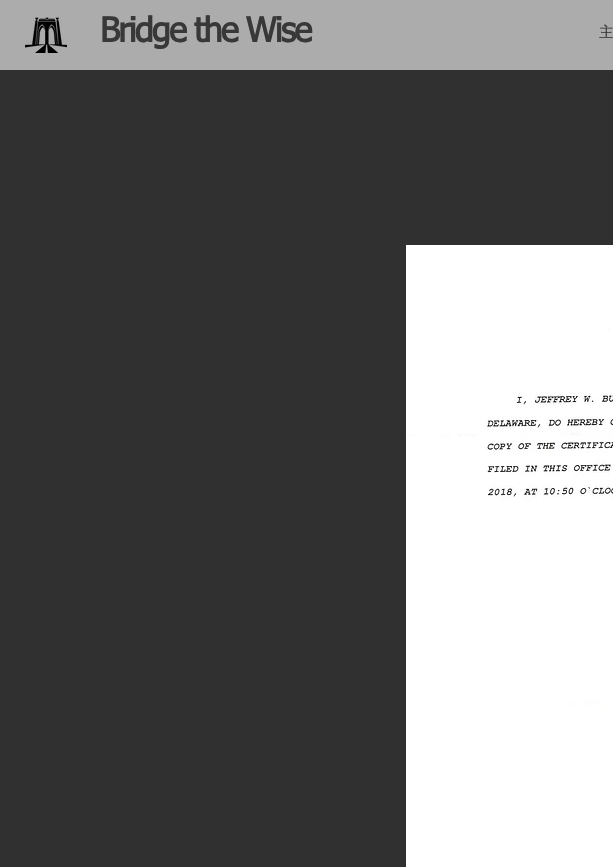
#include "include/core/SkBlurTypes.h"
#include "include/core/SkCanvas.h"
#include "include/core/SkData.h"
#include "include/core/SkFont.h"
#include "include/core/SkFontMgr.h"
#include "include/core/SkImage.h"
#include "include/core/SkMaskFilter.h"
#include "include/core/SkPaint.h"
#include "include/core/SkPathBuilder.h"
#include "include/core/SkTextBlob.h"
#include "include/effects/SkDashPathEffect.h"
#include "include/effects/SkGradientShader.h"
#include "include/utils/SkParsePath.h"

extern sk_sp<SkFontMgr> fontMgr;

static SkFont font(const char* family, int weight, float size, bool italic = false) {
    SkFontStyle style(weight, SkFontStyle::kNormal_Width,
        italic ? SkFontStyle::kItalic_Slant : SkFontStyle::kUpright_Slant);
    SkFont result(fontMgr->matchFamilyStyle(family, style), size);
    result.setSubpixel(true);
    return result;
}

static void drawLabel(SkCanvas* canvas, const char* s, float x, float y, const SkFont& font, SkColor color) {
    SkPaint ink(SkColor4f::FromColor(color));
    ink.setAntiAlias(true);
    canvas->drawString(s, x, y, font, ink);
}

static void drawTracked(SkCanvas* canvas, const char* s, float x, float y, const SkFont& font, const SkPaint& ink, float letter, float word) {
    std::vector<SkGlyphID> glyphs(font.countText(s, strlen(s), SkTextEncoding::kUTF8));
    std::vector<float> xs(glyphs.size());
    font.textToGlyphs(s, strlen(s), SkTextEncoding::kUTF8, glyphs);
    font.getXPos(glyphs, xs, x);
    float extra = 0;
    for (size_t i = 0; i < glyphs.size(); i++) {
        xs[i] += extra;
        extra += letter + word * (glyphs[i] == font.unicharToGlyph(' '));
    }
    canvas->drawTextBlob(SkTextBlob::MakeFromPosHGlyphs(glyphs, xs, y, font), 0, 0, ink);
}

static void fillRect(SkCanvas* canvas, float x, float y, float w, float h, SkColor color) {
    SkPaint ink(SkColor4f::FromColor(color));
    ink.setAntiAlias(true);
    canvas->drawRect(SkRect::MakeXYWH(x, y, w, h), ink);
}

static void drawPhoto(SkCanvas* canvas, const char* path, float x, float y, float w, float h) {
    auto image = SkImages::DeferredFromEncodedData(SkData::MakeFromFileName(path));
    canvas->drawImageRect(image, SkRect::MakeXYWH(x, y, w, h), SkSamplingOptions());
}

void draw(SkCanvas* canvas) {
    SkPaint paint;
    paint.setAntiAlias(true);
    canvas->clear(0xFF303030);
    fillRect(canvas, 0, 0, 613, 70, 0xFFACACAC);
    drawPhoto(canvas, "assets/img1.png", 25, 17, 42, 36);
    SkFont font1 = font("tahoma", 700, 34);
    paint.setColor(0xFF383838);
    drawTracked(canvas, "Bridge the Wise", 100, 42, font1, paint, -1.75f, 0);
    SkFont font2 = font("WenQuanYi Zen Hei", 500, 15);
    drawLabel(canvas, "主", 599, 37, font2, 0xFF383838);
    drawPhoto(canvas, "assets/img2.png", 406, 245, 207, 622);
}
